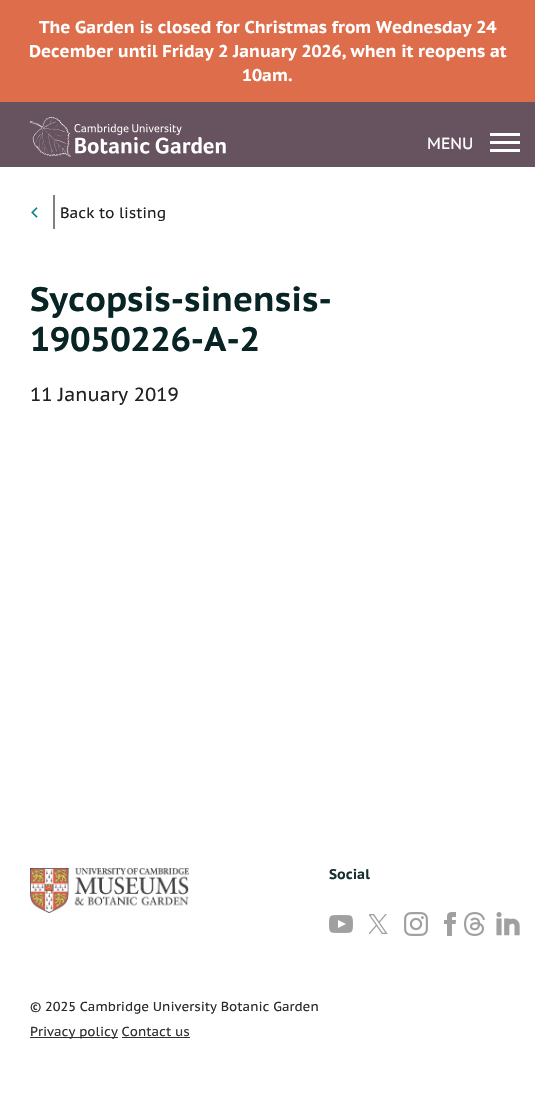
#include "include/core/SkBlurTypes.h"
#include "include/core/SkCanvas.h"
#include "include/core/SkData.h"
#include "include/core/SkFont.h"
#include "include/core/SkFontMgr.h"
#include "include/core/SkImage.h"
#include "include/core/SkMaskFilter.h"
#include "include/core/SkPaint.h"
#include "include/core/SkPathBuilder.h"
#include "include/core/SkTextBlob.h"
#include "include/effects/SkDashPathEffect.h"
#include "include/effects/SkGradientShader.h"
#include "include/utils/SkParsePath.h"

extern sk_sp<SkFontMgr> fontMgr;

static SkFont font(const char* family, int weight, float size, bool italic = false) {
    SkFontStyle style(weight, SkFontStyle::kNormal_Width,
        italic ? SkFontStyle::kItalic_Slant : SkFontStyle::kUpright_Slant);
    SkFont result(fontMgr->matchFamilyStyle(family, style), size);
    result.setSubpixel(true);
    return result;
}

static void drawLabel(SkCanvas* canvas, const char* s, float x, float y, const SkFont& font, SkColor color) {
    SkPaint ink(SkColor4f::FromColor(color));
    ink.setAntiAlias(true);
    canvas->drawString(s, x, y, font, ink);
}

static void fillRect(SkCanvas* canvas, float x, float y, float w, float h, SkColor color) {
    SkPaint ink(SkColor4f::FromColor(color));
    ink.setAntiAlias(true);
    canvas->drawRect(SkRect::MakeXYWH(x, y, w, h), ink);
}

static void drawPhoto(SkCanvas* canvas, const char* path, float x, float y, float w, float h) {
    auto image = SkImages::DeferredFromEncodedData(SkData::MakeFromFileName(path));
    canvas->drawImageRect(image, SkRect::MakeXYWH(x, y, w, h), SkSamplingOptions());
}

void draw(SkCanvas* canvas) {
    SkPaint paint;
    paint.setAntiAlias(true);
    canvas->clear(0xFFFFFFFF);
    fillRect(canvas, 0, 0, 535, 102, 0xFFDE6E4B);
    SkFont font1 = font("PT Sans Caption", 700, 17);
    drawLabel(canvas, "The Garden is closed for Christmas from Wednesday 24", 39, 33, font1, 0xFFFFFFFF);
    drawLabel(canvas, "December until Friday 2 January 2026, when it reopens at", 29, 57, font1, 0xFFFFFFFF);
    drawLabel(canvas, "10am.", 242, 81, font1, 0xFFFFFFFF);
    fillRect(canvas, 0, 102, 535, 65, 0xFF67535F);
    drawPhoto(canvas, "assets/img1.png", 30, 117, 196, 40);
    SkFont font2 = font("PT Sans Caption", 400, 16);
    drawLabel(canvas, "MENU", 427, 149, font2, 0xFFFFFFFF);
    fillRect(canvas, 490, 133, 30, 3, 0xFFFFFFFF);
    fillRect(canvas, 490, 141, 30, 3, 0xFFFFFFFF);
    fillRect(canvas, 490, 149, 30, 3, 0xFFFFFFFF);
    drawPhoto(canvas, "assets/img2.png", 31, 207, 7, 11);
    fillRect(canvas, 53, 195, 2, 34, 0xFF808080);
    SkFont font3 = font("PT Sans Caption", 400, 15);
    drawLabel(canvas, "Back to listing", 60, 218, font3, 0xFF212121);
    SkFont font4 = font("PT Sans Caption", 700, 34);
    drawLabel(canvas, "Sycopsis-sinensis-", 30, 311, font4, 0xFF092424);
    drawLabel(canvas, "19050226-A-2", 30, 351, font4, 0xFF092424);
    SkFont font5 = font("PT Sans Caption", 400, 19);
    drawLabel(canvas, "11 January 2019", 30, 401, font5, 0xFF212121);
    drawPhoto(canvas, "assets/img3.png", 30, 868, 159, 45);
    SkFont font6 = font("PT Sans Caption", 700, 14);
    drawLabel(canvas, "Social", 329, 879, font6, 0xFF152F2F);
    drawPhoto(canvas, "assets/img4.png", 329, 915, 24, 18);
    drawPhoto(canvas, "assets/img5.png", 369, 914, 19, 20);
    drawPhoto(canvas, "assets/img6.png", 404, 912, 24, 24);
    drawPhoto(canvas, "assets/img7.png", 444, 912, 12, 24);
    drawPhoto(canvas, "assets/img8.png", 464, 912, 21, 24);
    drawPhoto(canvas, "assets/img9.png", 496, 912, 24, 24);
    SkFont font7 = font("PT Sans Caption", 400, 13);
    drawLabel(canvas, "© 2025 Cambridge University Botanic Garden", 30, 1011, font7, 0xFF2A2A2A);
    fillRect(canvas, 30, 1037, 88, 1, 0xFF303030);
    drawLabel(canvas, "Privacy policy Contact us", 30, 1036, font7, 0xFF303030);
    fillRect(canvas, 122, 1037, 68, 1, 0xFF303030);
}
